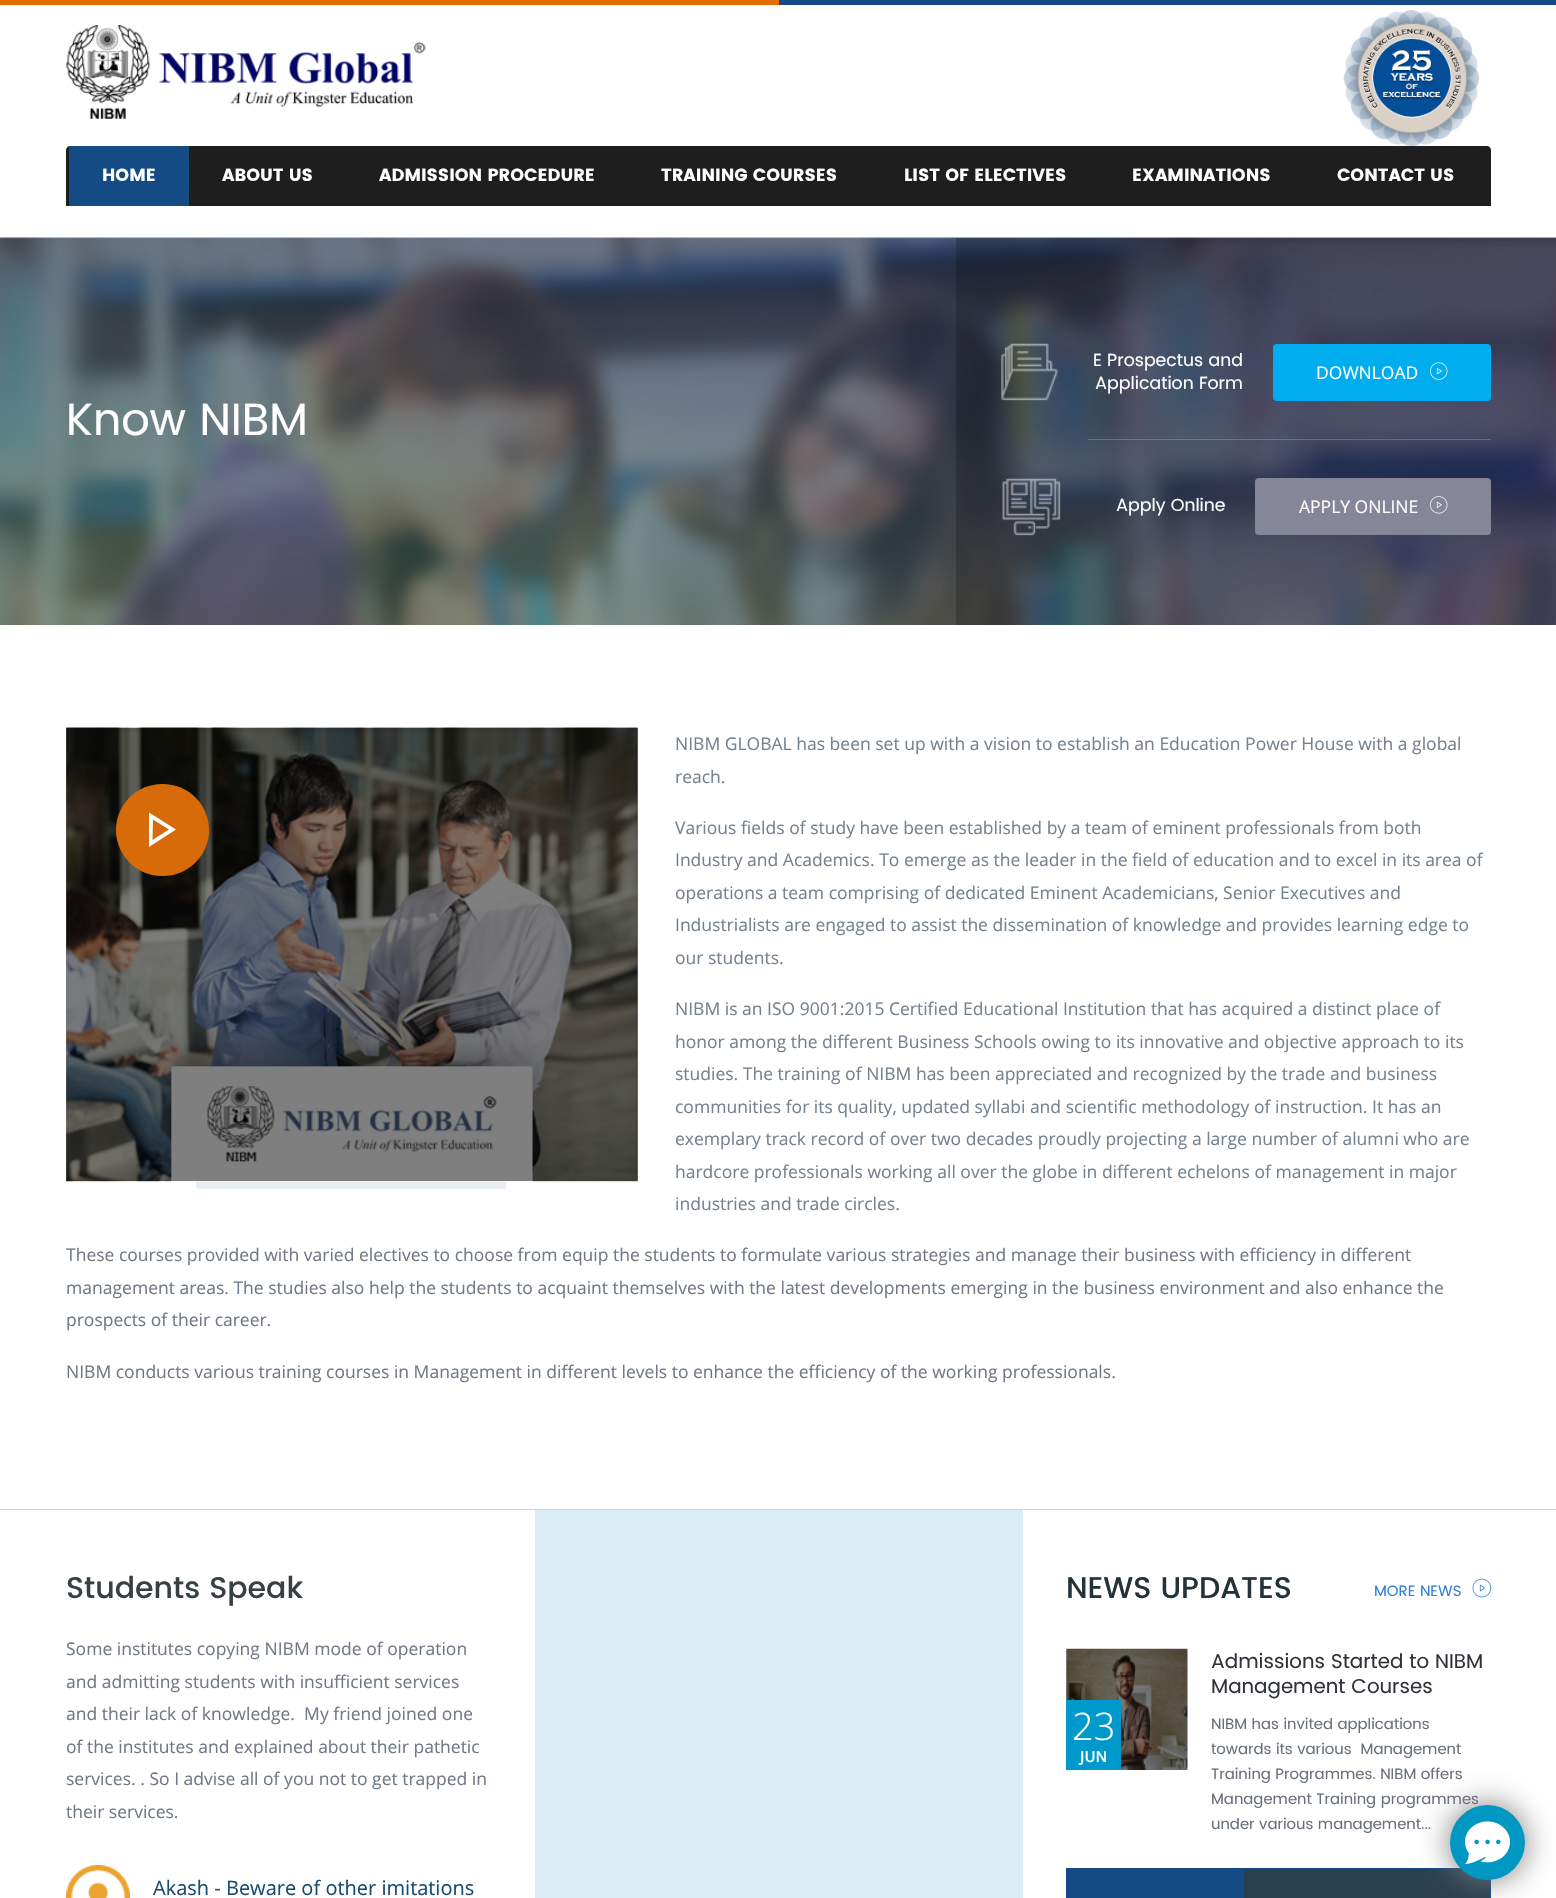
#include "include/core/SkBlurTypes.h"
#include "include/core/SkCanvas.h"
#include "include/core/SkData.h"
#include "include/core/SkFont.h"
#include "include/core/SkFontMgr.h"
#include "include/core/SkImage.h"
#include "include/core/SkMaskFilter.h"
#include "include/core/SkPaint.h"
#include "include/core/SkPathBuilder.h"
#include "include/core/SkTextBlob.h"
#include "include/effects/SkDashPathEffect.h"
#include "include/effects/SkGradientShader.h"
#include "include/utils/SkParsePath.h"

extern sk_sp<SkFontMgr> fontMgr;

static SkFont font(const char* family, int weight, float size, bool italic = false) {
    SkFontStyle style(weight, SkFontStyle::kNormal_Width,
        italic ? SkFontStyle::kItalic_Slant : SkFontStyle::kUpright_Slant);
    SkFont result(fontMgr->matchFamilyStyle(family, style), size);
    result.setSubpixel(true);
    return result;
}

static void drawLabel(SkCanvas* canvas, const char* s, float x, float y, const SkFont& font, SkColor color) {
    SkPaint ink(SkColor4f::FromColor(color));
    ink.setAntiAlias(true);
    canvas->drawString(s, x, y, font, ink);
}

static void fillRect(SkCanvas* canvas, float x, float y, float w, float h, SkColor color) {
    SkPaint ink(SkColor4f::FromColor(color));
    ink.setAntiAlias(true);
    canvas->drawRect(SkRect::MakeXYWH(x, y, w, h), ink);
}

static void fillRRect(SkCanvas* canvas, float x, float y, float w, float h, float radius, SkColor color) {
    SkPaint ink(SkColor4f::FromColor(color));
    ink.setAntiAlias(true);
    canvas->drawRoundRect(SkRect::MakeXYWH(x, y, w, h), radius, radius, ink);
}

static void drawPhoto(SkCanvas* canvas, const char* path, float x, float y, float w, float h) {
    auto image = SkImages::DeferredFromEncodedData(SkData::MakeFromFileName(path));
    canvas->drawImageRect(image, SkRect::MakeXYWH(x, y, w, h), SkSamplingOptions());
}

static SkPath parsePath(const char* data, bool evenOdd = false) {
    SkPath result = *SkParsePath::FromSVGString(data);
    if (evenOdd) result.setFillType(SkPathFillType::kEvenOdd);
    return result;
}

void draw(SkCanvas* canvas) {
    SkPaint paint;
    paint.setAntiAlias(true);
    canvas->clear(0xFFFFFFFF);
    fillRect(canvas, 0, 0, 779, 5, 0xFFE36D03);
    fillRect(canvas, 779, 0, 777, 5, 0xFF144B84);
    drawPhoto(canvas, "assets/img1.png", 66, 25, 360, 94);
    drawPhoto(canvas, "assets/img2.png", 1343, 10, 137, 136);
    paint.setColor(0xFF1E1E1E);
    canvas->drawPath(parsePath("M70 146H1487C1489 146 1491 148 1491 150V206H66V150C66 148 68 146 70 146Z"), paint);
    fillRect(canvas, 69, 146, 120, 60, 0xFF144B84);
    SkFont font1 = font("Poppins", 700, 17.5f);
    drawLabel(canvas, "HOME", 102, 181, font1, 0xFFFFFFFF);
    drawLabel(canvas, "ABOUT US", 222, 181, font1, 0xFFFFFFFF);
    drawLabel(canvas, "ADMISSION PROCEDURE", 379, 181, font1, 0xFFFFFFFF);
    drawLabel(canvas, "TRAINING COURSES", 661, 181, font1, 0xFFFFFFFF);
    drawLabel(canvas, "LIST OF ELECTIVES", 904, 181, font1, 0xFFFFFFFF);
    drawLabel(canvas, "EXAMINATIONS", 1132, 181, font1, 0xFFFFFFFF);
    drawLabel(canvas, "CONTACT US", 1337, 181, font1, 0xFFFFFFFF);
    drawPhoto(canvas, "assets/img3.png", 0, 237, 1556, 388);
    SkFont font2 = font("Poppins", 400, 45);
    drawLabel(canvas, "Know NIBM", 66, 435, font2, 0xFFFFFFFF);
    fillRect(canvas, 956, 238, 535, 387, 0x33000000);
    drawPhoto(canvas, "assets/img4.png", 1001, 343, 57, 58);
    SkFont font3 = font("Poppins", 400, 17.5f);
    drawLabel(canvas, "E Prospectus and", 1093, 366, font3, 0xFFFFFFFF);
    drawLabel(canvas, "Application Form", 1095, 389, font3, 0xFFFFFFFF);
    fillRRect(canvas, 1273, 344, 218, 57, 4, 0xFF00ADEF);
    SkFont font4 = font("Open Sans", 400, 17.5f);
    drawLabel(canvas, "DOWNLOAD", 1316, 379, font4, 0xFFFFFFFF);
    drawPhoto(canvas, "assets/img5.png", 1430, 362, 18, 18);
    fillRect(canvas, 1088, 439, 403, 1, 0x33FFFFFF);
    drawPhoto(canvas, "assets/img6.png", 1002, 478, 59, 58);
    drawLabel(canvas, "Apply Online", 1116, 511, font3, 0xFFFFFFFF);
    fillRRect(canvas, 1255, 478, 236, 57, 4, 0xFF858698);
    drawLabel(canvas, "APPLY ONLINE", 1299, 513, font4, 0xFFFFFFFF);
    drawPhoto(canvas, "assets/img7.png", 1430, 496, 18, 18);
    fillRect(canvas, 1491, 238, 65, 387, 0x33000000);
    fillRect(canvas, 0, 1509, 1556, 1, 0xFFC7D9E9);
    drawPhoto(canvas, "assets/img9.png", 196, 1181, 311, 8);
    drawPhoto(canvas, "assets/img8.png", 66, 727, 572, 455);
    fillRect(canvas, 66, 728, 572, 453, 0x80000000);
    fillRRect(canvas, 116, 784, 93, 92, 46, 0xFFD76B0A);
    paint.setColor(0xFFFFFFFF);
    canvas->drawPath(parsePath("M149 829.5V847L176 829.5L149 812.5ZM161 824.5L169 829.5L152.5 840L153 819.5Z"), paint);
    drawLabel(canvas, "NIBM GLOBAL has been set up with a vision to establish an Education Power House with a global", 675, 750, font4, 0xFF74828F);
    drawLabel(canvas, "reach.", 675, 783, font4, 0xFF74828F);
    drawLabel(canvas, "Various fields of study have been established by a team of eminent professionals from both", 675, 834, font4, 0xFF74828F);
    drawLabel(canvas, "Industry and Academics. To emerge as the leader in the field of education and to excel in its area of", 675, 866, font4, 0xFF74828F);
    drawLabel(canvas, "operations a team comprising of dedicated Eminent Academicians, Senior Executives and", 675, 899, font4, 0xFF74828F);
    drawLabel(canvas, "Industrialists are engaged to assist the dissemination of knowledge and provides learning edge to", 675, 931, font4, 0xFF74828F);
    drawLabel(canvas, "our students.", 675, 964, font4, 0xFF74828F);
    drawLabel(canvas, "NIBM is an ISO 9001:2015 Certified Educational Institution that has acquired a distinct place of", 675, 1015, font4, 0xFF74828F);
    drawLabel(canvas, "honor among the different Business Schools owing to its innovative and objective approach to its", 675, 1048, font4, 0xFF74828F);
    drawLabel(canvas, "studies. The training of NIBM has been appreciated and recognized by the trade and business", 675, 1080, font4, 0xFF74828F);
    drawLabel(canvas, "communities for its quality, updated syllabi and scientific methodology of instruction. It has an", 675, 1113, font4, 0xFF74828F);
    drawLabel(canvas, "exemplary track record of over two decades proudly projecting a large number of alumni who are", 675, 1145, font4, 0xFF74828F);
    drawLabel(canvas, "hardcore professionals working all over the globe in different echelons of management in major", 675, 1178, font4, 0xFF74828F);
    drawLabel(canvas, "industries and trade circles.", 675, 1210, font4, 0xFF74828F);
    drawLabel(canvas, "These courses provided with varied electives to choose from equip the students to formulate various strategies and manage their business with efficiency in different", 66, 1261, font4, 0xFF707986);
    drawLabel(canvas, "management areas. The studies also help the students to acquaint themselves with the latest developments emerging in the business environment and also enhance the", 66, 1294, font4, 0xFF707986);
    drawLabel(canvas, "prospects of their career.", 66, 1326, font4, 0xFF707986);
    drawLabel(canvas, "NIBM conducts various training courses in Management in different levels to enhance the efficiency of the working professionals.", 66, 1378, font4, 0xFF707986);
    SkFont font5 = font("Poppins", 500, 30);
    drawLabel(canvas, "Students Speak", 66, 1598, font5, 0xFF374044);
    drawLabel(canvas, "Some institutes copying NIBM mode of operation", 66, 1655, font4, 0xFF707986);
    drawLabel(canvas, "and admitting students with insufficient services", 66, 1688, font4, 0xFF707986);
    drawLabel(canvas, "and their lack of knowledge.  My friend joined one", 66, 1720, font4, 0xFF707986);
    drawLabel(canvas, "of the institutes and explained about their pathetic", 66, 1753, font4, 0xFF707986);
    drawLabel(canvas, "services. . So I advise all of you not to get trapped in", 66, 1785, font4, 0xFF707986);
    drawLabel(canvas, "their services.", 66, 1818, font4, 0xFF707986);
    drawPhoto(canvas, "assets/img10.png", 66, 1865, 64, 33);
    SkFont font6 = font("Open Sans", 400, 20);
    drawLabel(canvas, "Akash - Beware of other imitations", 153, 1895, font6, 0xFF194C73);
    fillRect(canvas, 535, 1510, 488, 388, 0xFFDAECF6);
    drawLabel(canvas, "NEWS UPDATES", 1066, 1598, font5, 0xFF22333A);
    SkFont font7 = font("Poppins", 400, 15);
    drawLabel(canvas, "MORE NEWS", 1374, 1596, font7, 0xFF3180D3);
    drawPhoto(canvas, "assets/img11.png", 1472, 1578, 20, 20);
    SkFont font8 = font("Poppins", 400, 20);
    drawLabel(canvas, "Admissions Started to NIBM", 1211, 1668, font8, 0xFF2F3339);
    drawLabel(canvas, "Management Courses", 1211, 1693, font8, 0xFF2F3339);
    drawPhoto(canvas, "assets/img12.png", 1066, 1648, 122, 122);
    fillRect(canvas, 1066, 1700, 55, 70, 0xFF0099CB);
    SkFont font9 = font("Open Sans", 300, 38);
    drawLabel(canvas, "23", 1072, 1740, font9, 0xFFFFFFFF);
    SkFont font10 = font("Open Sans", 600, 15);
    drawLabel(canvas, "JUN", 1080, 1762, font10, 0xFFFFFFFF);
    drawLabel(canvas, "NIBM has invited applications", 1211, 1729, font7, 0xFF68707B);
    drawLabel(canvas, "towards its various  Management", 1211, 1754, font7, 0xFF68707B);
    drawLabel(canvas, "Training Programmes. NIBM offers", 1211, 1779, font7, 0xFF68707B);
    drawLabel(canvas, "Management Training programmes", 1211, 1804, font7, 0xFF68707B);
    drawLabel(canvas, "under various management...", 1211, 1829, font7, 0xFF68707B);
    paint.setColor(0xFF294051);
    canvas->drawRect(SkRect::MakeXYWH(1066.5f, 1868.5f, 424, 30), paint);
    paint.setStroke(true);
    paint.setStrokeWidth(1);
    paint.setColor(0xFF144B84);
    canvas->drawRect(SkRect::MakeXYWH(1066.5f, 1868.5f, 424, 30), paint);
    fillRect(canvas, 1068, 1869, 176, 29, 0xFF144B84);
    paint.setStroke(false);
    paint.setColor(0xFF7A7A7A);
    paint.setMaskFilter(SkMaskFilter::MakeBlur(kNormal_SkBlurStyle, 15.5f));
    canvas->drawRoundRect(SkRect::MakeXYWH(1450, 1805, 75, 75), 37.5f, 37.5f, paint);
    paint.setMaskFilter(nullptr);
    paint.setColor(0xFF0097C2);
    canvas->drawCircle(1487.5f, 1842.5f, 37.5f, paint);
    drawPhoto(canvas, "assets/img13.png", 1465, 1821, 45, 44);
}
